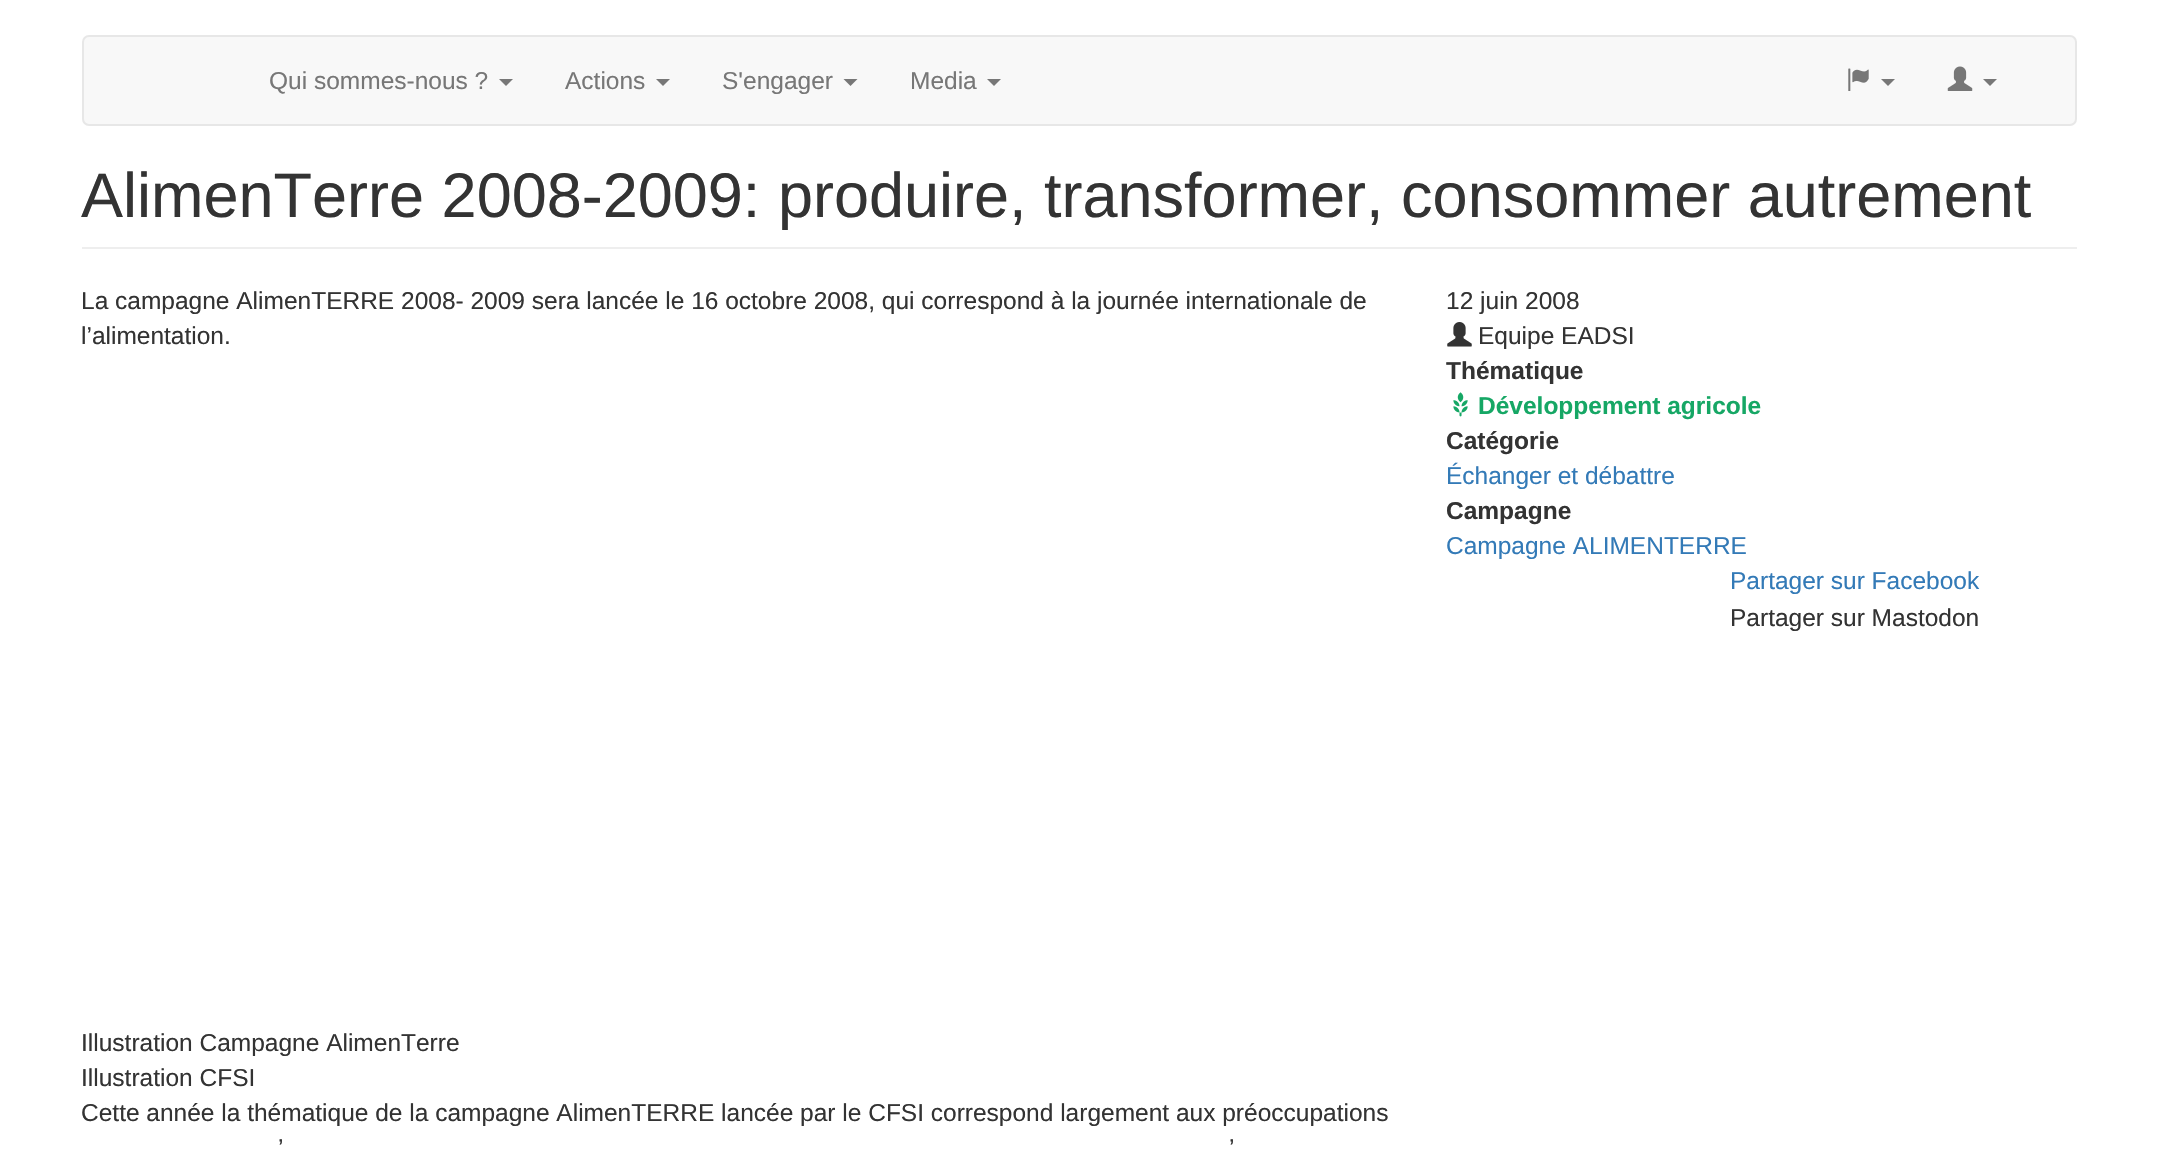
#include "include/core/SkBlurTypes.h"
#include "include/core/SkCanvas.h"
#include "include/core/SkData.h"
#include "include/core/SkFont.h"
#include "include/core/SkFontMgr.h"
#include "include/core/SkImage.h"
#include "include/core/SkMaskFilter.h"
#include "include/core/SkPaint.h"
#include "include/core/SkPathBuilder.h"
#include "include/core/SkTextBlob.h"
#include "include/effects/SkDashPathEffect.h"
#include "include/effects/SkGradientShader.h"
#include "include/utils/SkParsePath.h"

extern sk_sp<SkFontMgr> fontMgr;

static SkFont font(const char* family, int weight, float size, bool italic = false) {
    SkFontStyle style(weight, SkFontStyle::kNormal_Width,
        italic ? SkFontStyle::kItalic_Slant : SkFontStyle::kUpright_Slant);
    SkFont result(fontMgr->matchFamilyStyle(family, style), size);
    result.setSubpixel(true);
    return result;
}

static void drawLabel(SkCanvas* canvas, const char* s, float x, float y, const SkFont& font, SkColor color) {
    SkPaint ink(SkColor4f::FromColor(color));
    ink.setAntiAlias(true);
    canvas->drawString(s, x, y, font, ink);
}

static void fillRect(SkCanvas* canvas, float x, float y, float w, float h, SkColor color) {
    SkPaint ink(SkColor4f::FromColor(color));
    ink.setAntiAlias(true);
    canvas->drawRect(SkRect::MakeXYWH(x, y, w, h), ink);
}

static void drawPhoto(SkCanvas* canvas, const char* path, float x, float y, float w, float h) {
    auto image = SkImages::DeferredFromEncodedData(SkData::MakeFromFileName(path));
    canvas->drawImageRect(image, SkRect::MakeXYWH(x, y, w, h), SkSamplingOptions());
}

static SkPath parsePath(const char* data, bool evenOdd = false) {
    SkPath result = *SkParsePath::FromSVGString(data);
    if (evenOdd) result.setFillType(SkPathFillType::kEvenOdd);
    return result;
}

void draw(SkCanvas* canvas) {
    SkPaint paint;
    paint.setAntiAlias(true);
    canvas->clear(0xFFFFFFFF);
    paint.setColor(0xFFF8F8F8);
    canvas->drawRoundRect(SkRect::MakeXYWH(83, 36, 1993, 89), 6, 6, paint);
    paint.setStroke(true);
    paint.setStrokeWidth(2);
    paint.setColor(0xFFE7E7E7);
    canvas->drawRoundRect(SkRect::MakeXYWH(83, 36, 1993, 89), 6, 6, paint);
    SkFont font1 = font("Liberation Sans", 400, 24.5f);
    drawLabel(canvas, "Qui sommes-nous ?", 269, 89, font1, 0xFF777777);
    paint.setStroke(false);
    paint.setColor(0xFF777777);
    canvas->drawPath(parsePath("M499 79H513L506 86Z"), paint);
    drawLabel(canvas, "Actions", 565, 89, font1, 0xFF777777);
    canvas->drawPath(parsePath("M656 79H670L663 86Z"), paint);
    drawLabel(canvas, "S'engager", 722, 89, font1, 0xFF777777);
    canvas->drawPath(parsePath("M843.5 79H857.5L850.5 86Z"), paint);
    drawLabel(canvas, "Media", 910, 89, font1, 0xFF777777);
    canvas->drawPath(parsePath("M987 79H1001L994 86Z"), paint);
    drawPhoto(canvas, "assets/img1.png", 1848, 68, 21, 23);
    canvas->drawPath(parsePath("M1881 79H1895L1888 86Z"), paint);
    drawPhoto(canvas, "assets/img2.png", 1947, 66, 26, 25);
    canvas->drawPath(parsePath("M1983 79H1997L1990 86Z"), paint);
    fillRect(canvas, 82, 247, 1995, 2, 0xFFEEEEEE);
    SkFont font2 = font("Liberation Sans", 400, 63);
    drawLabel(canvas, "AlimenTerre 2008-2009: produire, transformer, consommer autrement", 81, 217, font2, 0xFF333333);
    drawLabel(canvas, "La campagne AlimenTERRE 2008- 2009 sera lancée le 16 octobre 2008, qui correspond à la journée internationale de", 81, 309, font1, 0xFF333333);
    drawLabel(canvas, "l’alimentation.", 81, 344, font1, 0xFF333333);
    drawLabel(canvas, "Illustration Campagne AlimenTerre", 81, 1051, font1, 0xFF333333);
    drawLabel(canvas, "Illustration CFSI", 81, 1086, font1, 0xFF333333);
    drawLabel(canvas, "Cette année la thématique de la campagne AlimenTERRE lancée par le CFSI correspond largement aux préoccupations", 81, 1121, font1, 0xFF333333);
    drawLabel(canvas, "’", 278, 1156, font1, 0xFF333333);
    drawLabel(canvas, "’", 1229, 1156, font1, 0xFF333333);
    drawLabel(canvas, "12 juin 2008", 1446, 309, font1, 0xFF333333);
    drawPhoto(canvas, "assets/img3.png", 1447, 322, 25, 25);
    drawLabel(canvas, "Equipe EADSI", 1478, 344, font1, 0xFF333333);
    SkFont font3 = font("Liberation Sans", 700, 24.5f);
    drawLabel(canvas, "Thématique", 1446, 379, font3, 0xFF333333);
    drawPhoto(canvas, "assets/img4.png", 1453, 392, 15, 25);
    drawLabel(canvas, "Développement agricole", 1478, 414, font3, 0xFF16A765);
    drawLabel(canvas, "Catégorie", 1446, 449, font3, 0xFF333333);
    drawLabel(canvas, "Échanger et débattre", 1446, 484, font1, 0xFF337AB7);
    drawLabel(canvas, "Campagne", 1446, 519, font3, 0xFF333333);
    drawLabel(canvas, "Campagne ALIMENTERRE", 1446, 554, font1, 0xFF337AB7);
    drawLabel(canvas, "Partager sur Facebook", 1730, 589, font1, 0xFF337AB7);
    drawLabel(canvas, "Partager sur Mastodon", 1730, 626, font1, 0xFF333333);
}
